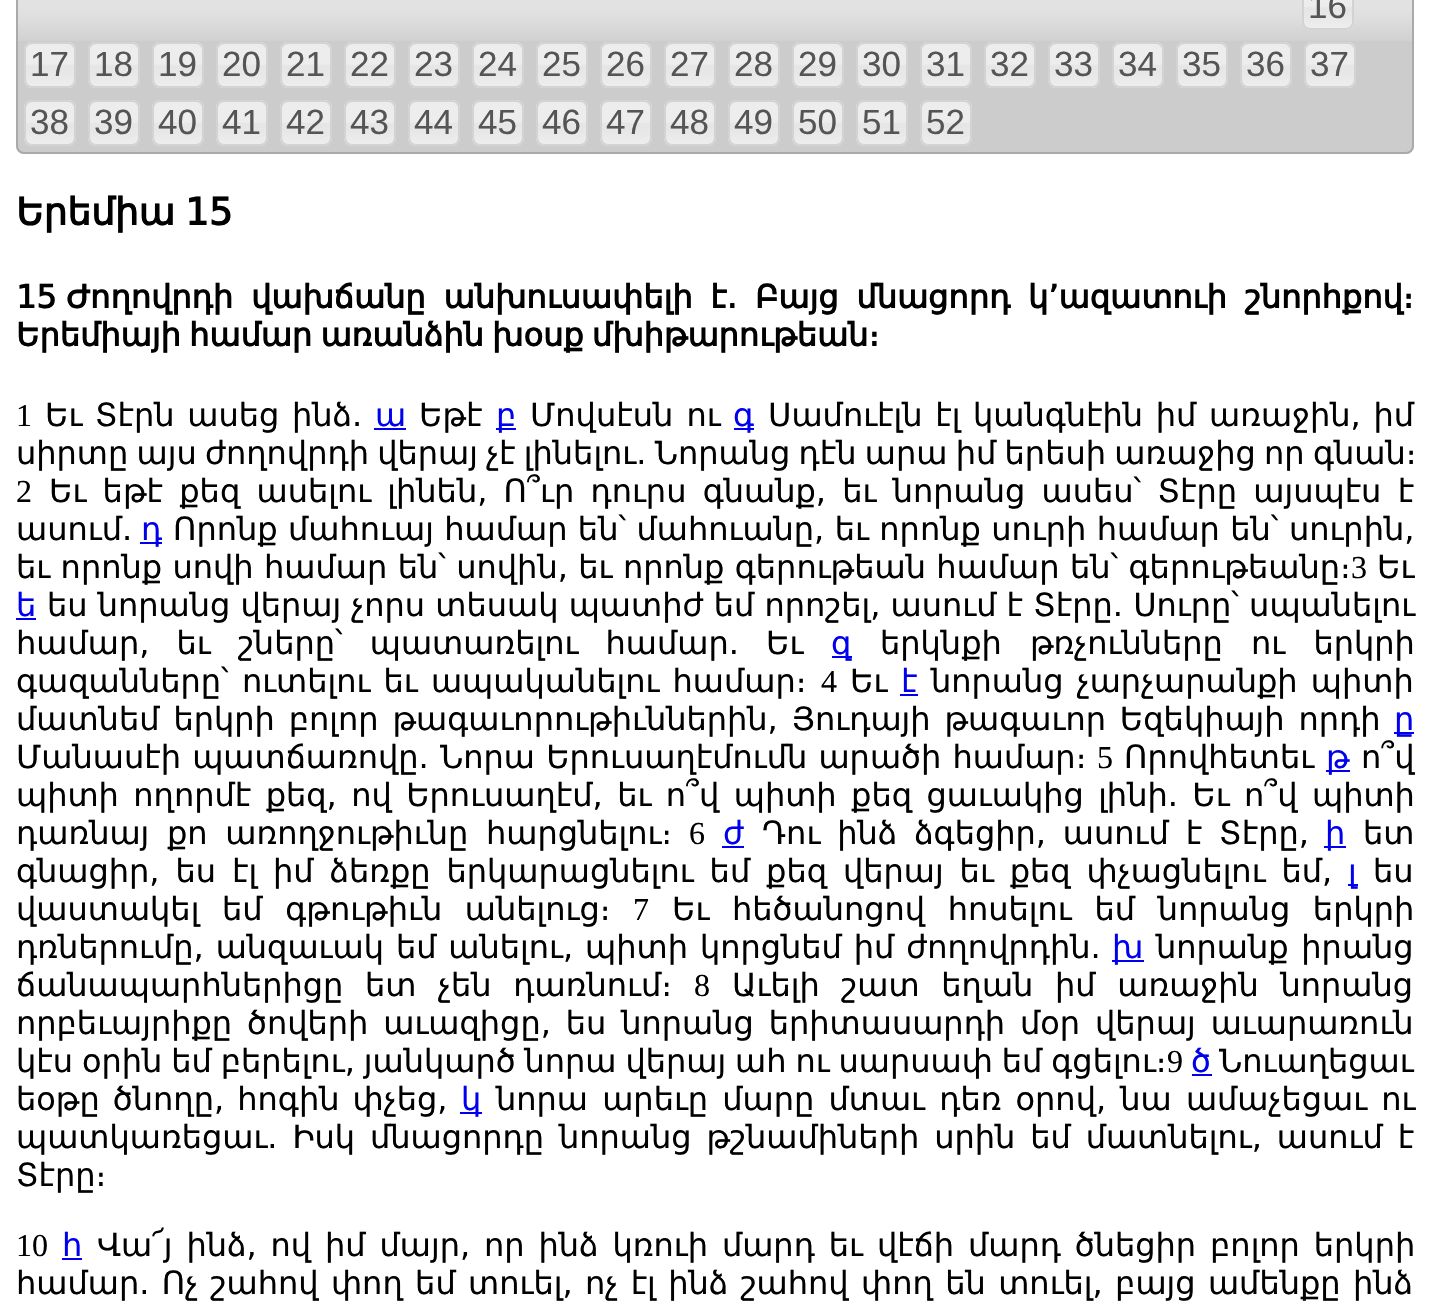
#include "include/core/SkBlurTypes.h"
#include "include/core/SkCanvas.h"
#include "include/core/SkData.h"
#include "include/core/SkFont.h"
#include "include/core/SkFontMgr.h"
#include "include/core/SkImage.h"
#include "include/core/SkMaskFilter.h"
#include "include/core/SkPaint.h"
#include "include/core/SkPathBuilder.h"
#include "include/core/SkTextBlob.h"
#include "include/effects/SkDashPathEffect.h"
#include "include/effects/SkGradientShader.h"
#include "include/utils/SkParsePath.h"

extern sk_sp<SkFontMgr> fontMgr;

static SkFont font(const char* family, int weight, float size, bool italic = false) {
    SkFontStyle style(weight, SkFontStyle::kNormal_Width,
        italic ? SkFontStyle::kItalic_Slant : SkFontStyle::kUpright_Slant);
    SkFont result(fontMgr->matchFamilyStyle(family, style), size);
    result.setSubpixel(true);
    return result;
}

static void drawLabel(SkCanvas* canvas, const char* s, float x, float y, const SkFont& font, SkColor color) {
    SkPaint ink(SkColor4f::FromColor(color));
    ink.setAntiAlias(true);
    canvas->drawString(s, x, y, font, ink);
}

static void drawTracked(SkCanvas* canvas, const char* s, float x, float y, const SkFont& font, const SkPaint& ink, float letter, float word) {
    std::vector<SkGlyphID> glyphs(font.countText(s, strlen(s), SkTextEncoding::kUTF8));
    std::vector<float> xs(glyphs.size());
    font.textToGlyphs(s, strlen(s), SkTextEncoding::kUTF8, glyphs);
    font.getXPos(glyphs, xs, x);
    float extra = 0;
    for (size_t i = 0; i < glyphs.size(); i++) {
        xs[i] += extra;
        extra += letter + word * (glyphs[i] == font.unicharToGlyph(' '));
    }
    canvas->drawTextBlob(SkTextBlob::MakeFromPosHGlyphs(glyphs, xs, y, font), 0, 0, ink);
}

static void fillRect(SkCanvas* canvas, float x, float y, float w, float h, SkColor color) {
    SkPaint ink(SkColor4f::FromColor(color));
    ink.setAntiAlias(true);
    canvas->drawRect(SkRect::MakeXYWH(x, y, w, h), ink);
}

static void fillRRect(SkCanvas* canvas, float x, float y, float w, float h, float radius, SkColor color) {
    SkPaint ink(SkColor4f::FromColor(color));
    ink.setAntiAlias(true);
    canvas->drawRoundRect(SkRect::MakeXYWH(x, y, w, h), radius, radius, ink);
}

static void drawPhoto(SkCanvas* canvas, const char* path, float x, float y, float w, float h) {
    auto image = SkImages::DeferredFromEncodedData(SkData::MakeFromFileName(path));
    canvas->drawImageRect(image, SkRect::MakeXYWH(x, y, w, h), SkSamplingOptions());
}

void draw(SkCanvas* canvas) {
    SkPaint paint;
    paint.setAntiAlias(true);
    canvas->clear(0xFFFFFFFF);
    fillRRect(canvas, 16, -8, 1398, 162, 8, 0xFFCCCCCC);
    drawPhoto(canvas, "assets/img1.png", 18, 0, 1394, 41);
    paint.setStroke(true);
    paint.setStrokeWidth(2);
    paint.setColor(0xFFAAAAAA);
    canvas->drawRoundRect(SkRect::MakeXYWH(17, -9, 1396, 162), 7, 7, paint);
    drawPhoto(canvas, "assets/img2.png", 1302, 0, 52, 30);
    paint.setColor(0xFFD3D3D3);
    canvas->drawRoundRect(SkRect::MakeXYWH(1303, -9, 50, 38), 7, 7, paint);
    SkFont font1 = font("Liberation Sans", 400, 35);
    drawLabel(canvas, "16", 1308, 18, font1, 0xFF555555);
    drawPhoto(canvas, "assets/img3.png", 24, 42, 52, 46);
    canvas->drawRoundRect(SkRect::MakeXYWH(25, 43, 50, 44), 7, 7, paint);
    drawLabel(canvas, "17", 30, 76, font1, 0xFF555555);
    drawPhoto(canvas, "assets/img3.png", 88, 42, 52, 46);
    canvas->drawRoundRect(SkRect::MakeXYWH(89, 43, 50, 44), 7, 7, paint);
    drawLabel(canvas, "18", 94, 76, font1, 0xFF555555);
    drawPhoto(canvas, "assets/img3.png", 152, 42, 52, 46);
    canvas->drawRoundRect(SkRect::MakeXYWH(153, 43, 50, 44), 7, 7, paint);
    drawLabel(canvas, "19", 158, 76, font1, 0xFF555555);
    drawPhoto(canvas, "assets/img3.png", 216, 42, 52, 46);
    canvas->drawRoundRect(SkRect::MakeXYWH(217, 43, 50, 44), 7, 7, paint);
    drawLabel(canvas, "20", 222, 76, font1, 0xFF555555);
    drawPhoto(canvas, "assets/img3.png", 280, 42, 52, 46);
    canvas->drawRoundRect(SkRect::MakeXYWH(281, 43, 50, 44), 7, 7, paint);
    drawLabel(canvas, "21", 286, 76, font1, 0xFF555555);
    drawPhoto(canvas, "assets/img3.png", 344, 42, 52, 46);
    canvas->drawRoundRect(SkRect::MakeXYWH(345, 43, 50, 44), 7, 7, paint);
    drawLabel(canvas, "22", 350, 76, font1, 0xFF555555);
    drawPhoto(canvas, "assets/img3.png", 408, 42, 52, 46);
    canvas->drawRoundRect(SkRect::MakeXYWH(409, 43, 50, 44), 7, 7, paint);
    drawLabel(canvas, "23", 414, 76, font1, 0xFF555555);
    drawPhoto(canvas, "assets/img3.png", 472, 42, 52, 46);
    canvas->drawRoundRect(SkRect::MakeXYWH(473, 43, 50, 44), 7, 7, paint);
    drawLabel(canvas, "24", 478, 76, font1, 0xFF555555);
    drawPhoto(canvas, "assets/img3.png", 536, 42, 52, 46);
    canvas->drawRoundRect(SkRect::MakeXYWH(537, 43, 50, 44), 7, 7, paint);
    drawLabel(canvas, "25", 542, 76, font1, 0xFF555555);
    drawPhoto(canvas, "assets/img3.png", 600, 42, 52, 46);
    canvas->drawRoundRect(SkRect::MakeXYWH(601, 43, 50, 44), 7, 7, paint);
    drawLabel(canvas, "26", 606, 76, font1, 0xFF555555);
    drawPhoto(canvas, "assets/img3.png", 664, 42, 52, 46);
    canvas->drawRoundRect(SkRect::MakeXYWH(665, 43, 50, 44), 7, 7, paint);
    drawLabel(canvas, "27", 670, 76, font1, 0xFF555555);
    drawPhoto(canvas, "assets/img3.png", 728, 42, 52, 46);
    canvas->drawRoundRect(SkRect::MakeXYWH(729, 43, 50, 44), 7, 7, paint);
    drawLabel(canvas, "28", 734, 76, font1, 0xFF555555);
    drawPhoto(canvas, "assets/img3.png", 792, 42, 52, 46);
    canvas->drawRoundRect(SkRect::MakeXYWH(793, 43, 50, 44), 7, 7, paint);
    drawLabel(canvas, "29", 798, 76, font1, 0xFF555555);
    drawPhoto(canvas, "assets/img3.png", 856, 42, 52, 46);
    canvas->drawRoundRect(SkRect::MakeXYWH(857, 43, 50, 44), 7, 7, paint);
    drawLabel(canvas, "30", 862, 76, font1, 0xFF555555);
    drawPhoto(canvas, "assets/img3.png", 920, 42, 52, 46);
    canvas->drawRoundRect(SkRect::MakeXYWH(921, 43, 50, 44), 7, 7, paint);
    drawLabel(canvas, "31", 926, 76, font1, 0xFF555555);
    drawPhoto(canvas, "assets/img3.png", 984, 42, 52, 46);
    canvas->drawRoundRect(SkRect::MakeXYWH(985, 43, 50, 44), 7, 7, paint);
    drawLabel(canvas, "32", 990, 76, font1, 0xFF555555);
    drawPhoto(canvas, "assets/img3.png", 1048, 42, 52, 46);
    canvas->drawRoundRect(SkRect::MakeXYWH(1049, 43, 50, 44), 7, 7, paint);
    drawLabel(canvas, "33", 1054, 76, font1, 0xFF555555);
    drawPhoto(canvas, "assets/img3.png", 1112, 42, 52, 46);
    canvas->drawRoundRect(SkRect::MakeXYWH(1113, 43, 50, 44), 7, 7, paint);
    drawLabel(canvas, "34", 1118, 76, font1, 0xFF555555);
    drawPhoto(canvas, "assets/img3.png", 1176, 42, 52, 46);
    canvas->drawRoundRect(SkRect::MakeXYWH(1177, 43, 50, 44), 7, 7, paint);
    drawLabel(canvas, "35", 1182, 76, font1, 0xFF555555);
    drawPhoto(canvas, "assets/img3.png", 1240, 42, 52, 46);
    canvas->drawRoundRect(SkRect::MakeXYWH(1241, 43, 50, 44), 7, 7, paint);
    drawLabel(canvas, "36", 1246, 76, font1, 0xFF555555);
    drawPhoto(canvas, "assets/img3.png", 1304, 42, 52, 46);
    canvas->drawRoundRect(SkRect::MakeXYWH(1305, 43, 50, 44), 7, 7, paint);
    drawLabel(canvas, "37", 1310, 76, font1, 0xFF555555);
    drawPhoto(canvas, "assets/img3.png", 24, 100, 52, 46);
    canvas->drawRoundRect(SkRect::MakeXYWH(25, 101, 50, 44), 7, 7, paint);
    drawLabel(canvas, "38", 30, 134, font1, 0xFF555555);
    drawPhoto(canvas, "assets/img3.png", 88, 100, 52, 46);
    canvas->drawRoundRect(SkRect::MakeXYWH(89, 101, 50, 44), 7, 7, paint);
    drawLabel(canvas, "39", 94, 134, font1, 0xFF555555);
    drawPhoto(canvas, "assets/img3.png", 152, 100, 52, 46);
    canvas->drawRoundRect(SkRect::MakeXYWH(153, 101, 50, 44), 7, 7, paint);
    drawLabel(canvas, "40", 158, 134, font1, 0xFF555555);
    drawPhoto(canvas, "assets/img3.png", 216, 100, 52, 46);
    canvas->drawRoundRect(SkRect::MakeXYWH(217, 101, 50, 44), 7, 7, paint);
    drawLabel(canvas, "41", 222, 134, font1, 0xFF555555);
    drawPhoto(canvas, "assets/img3.png", 280, 100, 52, 46);
    canvas->drawRoundRect(SkRect::MakeXYWH(281, 101, 50, 44), 7, 7, paint);
    drawLabel(canvas, "42", 286, 134, font1, 0xFF555555);
    drawPhoto(canvas, "assets/img3.png", 344, 100, 52, 46);
    canvas->drawRoundRect(SkRect::MakeXYWH(345, 101, 50, 44), 7, 7, paint);
    drawLabel(canvas, "43", 350, 134, font1, 0xFF555555);
    drawPhoto(canvas, "assets/img3.png", 408, 100, 52, 46);
    canvas->drawRoundRect(SkRect::MakeXYWH(409, 101, 50, 44), 7, 7, paint);
    drawLabel(canvas, "44", 414, 134, font1, 0xFF555555);
    drawPhoto(canvas, "assets/img3.png", 472, 100, 52, 46);
    canvas->drawRoundRect(SkRect::MakeXYWH(473, 101, 50, 44), 7, 7, paint);
    drawLabel(canvas, "45", 478, 134, font1, 0xFF555555);
    drawPhoto(canvas, "assets/img3.png", 536, 100, 52, 46);
    canvas->drawRoundRect(SkRect::MakeXYWH(537, 101, 50, 44), 7, 7, paint);
    drawLabel(canvas, "46", 542, 134, font1, 0xFF555555);
    drawPhoto(canvas, "assets/img3.png", 600, 100, 52, 46);
    canvas->drawRoundRect(SkRect::MakeXYWH(601, 101, 50, 44), 7, 7, paint);
    drawLabel(canvas, "47", 606, 134, font1, 0xFF555555);
    drawPhoto(canvas, "assets/img3.png", 664, 100, 52, 46);
    canvas->drawRoundRect(SkRect::MakeXYWH(665, 101, 50, 44), 7, 7, paint);
    drawLabel(canvas, "48", 670, 134, font1, 0xFF555555);
    drawPhoto(canvas, "assets/img3.png", 728, 100, 52, 46);
    canvas->drawRoundRect(SkRect::MakeXYWH(729, 101, 50, 44), 7, 7, paint);
    drawLabel(canvas, "49", 734, 134, font1, 0xFF555555);
    drawPhoto(canvas, "assets/img3.png", 792, 100, 52, 46);
    canvas->drawRoundRect(SkRect::MakeXYWH(793, 101, 50, 44), 7, 7, paint);
    drawLabel(canvas, "50", 798, 134, font1, 0xFF555555);
    drawPhoto(canvas, "assets/img3.png", 856, 100, 52, 46);
    canvas->drawRoundRect(SkRect::MakeXYWH(857, 101, 50, 44), 7, 7, paint);
    drawLabel(canvas, "51", 862, 134, font1, 0xFF555555);
    drawPhoto(canvas, "assets/img3.png", 920, 100, 52, 46);
    canvas->drawRoundRect(SkRect::MakeXYWH(921, 101, 50, 44), 7, 7, paint);
    drawLabel(canvas, "52", 926, 134, font1, 0xFF555555);
    SkFont font2 = font("DejaVu Sans", 700, 37.5f);
    paint.setStroke(false);
    paint.setColor(0xFF000000);
    drawTracked(canvas, "Երեմիա 15", 16, 225, font2, paint, 0, -2);
    SkFont font3 = font("DejaVu Sans", 700, 32);
    drawLabel(canvas, "15", 16, 308, font3, 0xFF000000);
    drawTracked(canvas, "Ժողովրդի վախճանը անխուսափելի է. Բայց մնացորդ կ’ազատուի շնորհքով։", 66, 308, font3, paint, 0, 7.75f);
    drawTracked(canvas, "Երեմիայի համար առանձին խօսք մխիթարութեան։", 16, 346, font3, paint, 0, -1.9f);
    SkFont font4 = font("Liberation Serif", 400, 32);
    drawLabel(canvas, "1", 16, 426, font4, 0xFF000000);
    SkFont font5 = font("DejaVu Sans", 400, 32);
    drawTracked(canvas, "Եւ Տէրն ասեց ինձ.", 45, 426, font5, paint, 0, 2.5f);
    drawLabel(canvas, "ա", 375, 426, font5, 0xFF0000EE);
    fillRect(canvas, 374, 428, 32, 2, 0xFF0000EE);
    drawLabel(canvas, "Եթէ", 419, 426, font5, 0xFF000000);
    fillRect(canvas, 496, 428, 20, 2, 0xFF0000EE);
    drawLabel(canvas, "բ", 496, 426, font5, 0xFF0000EE);
    drawTracked(canvas, "Մովսէսն ու", 530, 426, font5, paint, 0, 3);
    fillRect(canvas, 734, 428, 20, 2, 0xFF0000EE);
    drawLabel(canvas, "գ", 733, 426, font5, 0xFF0000EE);
    drawTracked(canvas, "Սամուէլն էլ կանգնէին իմ առաջին, իմ", 768, 426, font5, paint, 0, 2.5f);
    drawTracked(canvas, "սիրտը այս ժողովրդի վերայ չէ լինելու. Նորանց դէն արա իմ երեսի առաջից որ գնան։", 16, 464, font5, paint, 0, -1.9f);
    drawLabel(canvas, "2", 16, 502, font4, 0xFF000000);
    drawTracked(canvas, "Եւ եթէ քեզ ասելու լինեն, Ո՞ւր դուրս գնանք, եւ նորանց ասես՝ Տէրը այսպէս է", 49, 502, font5, paint, 0, 6.1f);
    drawLabel(canvas, "ասում.", 16, 540, font5, 0xFF000000);
    fillRect(canvas, 140, 542, 22, 2, 0xFF0000EE);
    drawLabel(canvas, "դ", 141, 540, font5, 0xFF0000EE);
    drawTracked(canvas, "Որոնք մահուայ համար են՝ մահուանը, եւ որոնք սուրի համար են՝ սուրին,", 173, 540, font5, paint, 0, 0.25f);
    drawTracked(canvas, "եւ որոնք սովի համար են՝ սովին, եւ որոնք գերութեան համար են՝ գերութեանը։", 16, 578, font5, paint, 0, 0.25f);
    drawLabel(canvas, "3", 1351, 578, font4, 0xFF000000);
    drawLabel(canvas, "Եւ", 1377, 578, font5, 0xFF000000);
    drawLabel(canvas, "ե", 16, 616, font5, 0xFF0000EE);
    fillRect(canvas, 16, 618, 20, 2, 0xFF0000EE);
    drawLabel(canvas, "ես նորանց վերայ չորս տեսակ պատիժ եմ որոշել, ասում է Տէրը. Սուրը՝ սպանելու", 47, 616, font5, 0xFF000000);
    drawTracked(canvas, "համար, եւ շները՝ պատառելու համար. Եւ", 16, 654, font5, paint, 0, 17);
    fillRect(canvas, 832, 656, 20, 2, 0xFF0000EE);
    drawLabel(canvas, "զ", 831, 654, font5, 0xFF0000EE);
    drawTracked(canvas, "երկնքի թռչունները ու երկրի", 880, 654, font5, paint, 0, 18);
    drawTracked(canvas, "գազանները՝ ուտելու եւ ապականելու համար։", 16, 692, font5, paint, 0, 3);
    drawLabel(canvas, "4", 821, 692, font4, 0xFF000000);
    drawLabel(canvas, "Եւ", 850, 692, font5, 0xFF000000);
    drawLabel(canvas, "է", 901, 692, font5, 0xFF0000EE);
    fillRect(canvas, 900, 694, 18, 2, 0xFF0000EE);
    drawTracked(canvas, "նորանց չարչարանքի պիտի", 931, 692, font5, paint, 0, 3);
    drawTracked(canvas, "մատնեմ երկրի բոլոր թագաւորութիւններին, Յուդայի թագաւոր Եզեկիայի որդի", 16, 730, font5, paint, 0, 3.75f);
    fillRect(canvas, 1394, 732, 20, 2, 0xFF0000EE);
    drawLabel(canvas, "ը", 1394, 730, font5, 0xFF0000EE);
    drawTracked(canvas, "Մանասէի պատճառովը. Նորա Երուսաղէմումն արածի համար։", 16, 768, font5, paint, 0, 1);
    drawLabel(canvas, "5", 1097, 768, font4, 0xFF000000);
    drawLabel(canvas, "Որովհետեւ", 1124, 768, font5, 0xFF000000);
    fillRect(canvas, 1326, 770, 24, 2, 0xFF0000EE);
    drawLabel(canvas, "թ", 1326, 768, font5, 0xFF0000EE);
    drawLabel(canvas, "ո՞վ", 1361, 768, font5, 0xFF000000);
    drawTracked(canvas, "պիտի ողորմէ քեզ, ով Երուսաղէմ, եւ ո՞վ պիտի քեզ ցաւակից լինի. Եւ ո՞վ պիտի", 16, 806, font5, paint, 0, 4.25f);
    drawTracked(canvas, "դառնայ քո առողջութիւնը հարցնելու։", 16, 844, font5, paint, 0, 7.5f);
    drawLabel(canvas, "6", 689, 844, font4, 0xFF000000);
    drawLabel(canvas, "ժ", 723, 844, font5, 0xFF0000EE);
    fillRect(canvas, 722, 846, 22, 2, 0xFF0000EE);
    drawTracked(canvas, "Դու ինձ ձգեցիր, ասում է Տէրը,", 762, 844, font5, paint, 0, 6.75f);
    fillRect(canvas, 1324, 846, 22, 2, 0xFF0000EE);
    drawLabel(canvas, "ի", 1325, 844, font5, 0xFF0000EE);
    drawLabel(canvas, "ետ", 1363, 844, font5, 0xFF000000);
    drawTracked(canvas, "գնացիր, ես էլ իմ ձեռքը երկարացնելու եմ քեզ վերայ եւ քեզ փչացնելու եմ,", 16, 882, font5, paint, 0, 5.75f);
    fillRect(canvas, 1348, 884, 10, 2, 0xFF0000EE);
    drawLabel(canvas, "լ", 1348, 882, font5, 0xFF0000EE);
    drawLabel(canvas, "ես", 1373, 882, font5, 0xFF000000);
    drawTracked(canvas, "վաստակել եմ գթութիւն անելուց։", 16, 920, font5, paint, 0, 12.5f);
    drawLabel(canvas, "7", 633, 920, font4, 0xFF000000);
    drawTracked(canvas, "Եւ հեծանոցով հոսելու եմ նորանց երկրի", 672, 920, font5, paint, 0, 12.5f);
    drawTracked(canvas, "դռներումը, անզաւակ եմ անելու, պիտի կորցնեմ իմ ժողովրդին.", 16, 958, font5, paint, 0, 1.75f);
    fillRect(canvas, 1112, 960, 32, 2, 0xFF0000EE);
    drawLabel(canvas, "խ", 1112, 958, font5, 0xFF0000EE);
    drawTracked(canvas, "նորանք իրանց", 1156, 958, font5, paint, 0, 2.5f);
    drawTracked(canvas, "ճանապարհներիցը ետ չեն դառնում։", 16, 996, font5, paint, 0, 11.5f);
    drawLabel(canvas, "8", 694, 996, font4, 0xFF000000);
    drawTracked(canvas, "Աւելի շատ եղան իմ առաջին նորանց", 732, 996, font5, paint, 0, 11.5f);
    drawTracked(canvas, "որբեւայրիքը ծովերի աւազիցը, ես նորանց երիտասարդի մօր վերայ աւարառուն", 16, 1034, font5, paint, 0, 4.75f);
    drawTracked(canvas, "կէս օրին եմ բերելու, յանկարծ նորա վերայ ահ ու սարսափ եմ գցելու։", 16, 1072, font5, paint, 0, -1.25f);
    drawLabel(canvas, "9", 1167, 1072, font4, 0xFF000000);
    drawLabel(canvas, "ծ", 1191, 1072, font5, 0xFF0000EE);
    fillRect(canvas, 1192, 1074, 20, 2, 0xFF0000EE);
    drawLabel(canvas, "Նուաղեցաւ", 1219, 1072, font5, 0xFF000000);
    drawTracked(canvas, "եօթը ծնողը, հոգին փչեց,", 16, 1110, font5, paint, 0, 3);
    fillRect(canvas, 460, 1112, 22, 2, 0xFF0000EE);
    drawLabel(canvas, "կ", 461, 1110, font5, 0xFF0000EE);
    drawTracked(canvas, "նորա արեւը մարը մտաւ դեռ օրով, նա ամաչեցաւ ու", 496, 1110, font5, paint, 0, 4);
    drawTracked(canvas, "պատկառեցաւ. Իսկ մնացորդը նորանց թշնամիների սրին եմ մատնելու, ասում է", 16, 1148, font5, paint, 0, 4.75f);
    drawLabel(canvas, "Տէրը։", 16, 1186, font5, 0xFF000000);
    drawLabel(canvas, "10", 16, 1256, font4, 0xFF000000);
    drawLabel(canvas, "հ", 62, 1256, font5, 0xFF0000EE);
    fillRect(canvas, 62, 1258, 20, 2, 0xFF0000EE);
    drawTracked(canvas, "Վա՜յ ինձ, ով իմ մայր, որ ինձ կռուի մարդ եւ վէճի մարդ ծնեցիր բոլոր երկրի", 97, 1256, font5, paint, 0, 3.75f);
    drawTracked(canvas, "համար. Ոչ շահով փող եմ տուել, ոչ էլ ինձ շահով փող են տուել, բայց ամենքը ինձ", 16, 1294, font5, paint, 0, 2.25f);
}
